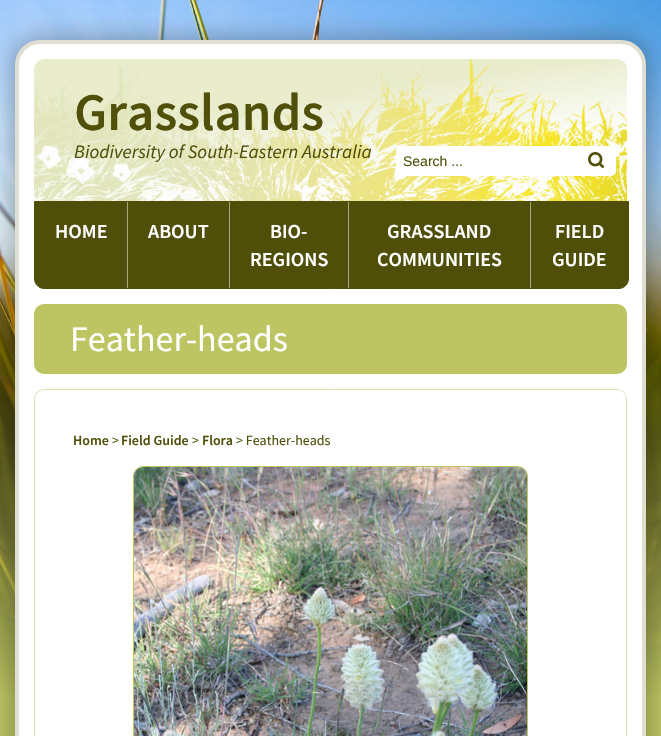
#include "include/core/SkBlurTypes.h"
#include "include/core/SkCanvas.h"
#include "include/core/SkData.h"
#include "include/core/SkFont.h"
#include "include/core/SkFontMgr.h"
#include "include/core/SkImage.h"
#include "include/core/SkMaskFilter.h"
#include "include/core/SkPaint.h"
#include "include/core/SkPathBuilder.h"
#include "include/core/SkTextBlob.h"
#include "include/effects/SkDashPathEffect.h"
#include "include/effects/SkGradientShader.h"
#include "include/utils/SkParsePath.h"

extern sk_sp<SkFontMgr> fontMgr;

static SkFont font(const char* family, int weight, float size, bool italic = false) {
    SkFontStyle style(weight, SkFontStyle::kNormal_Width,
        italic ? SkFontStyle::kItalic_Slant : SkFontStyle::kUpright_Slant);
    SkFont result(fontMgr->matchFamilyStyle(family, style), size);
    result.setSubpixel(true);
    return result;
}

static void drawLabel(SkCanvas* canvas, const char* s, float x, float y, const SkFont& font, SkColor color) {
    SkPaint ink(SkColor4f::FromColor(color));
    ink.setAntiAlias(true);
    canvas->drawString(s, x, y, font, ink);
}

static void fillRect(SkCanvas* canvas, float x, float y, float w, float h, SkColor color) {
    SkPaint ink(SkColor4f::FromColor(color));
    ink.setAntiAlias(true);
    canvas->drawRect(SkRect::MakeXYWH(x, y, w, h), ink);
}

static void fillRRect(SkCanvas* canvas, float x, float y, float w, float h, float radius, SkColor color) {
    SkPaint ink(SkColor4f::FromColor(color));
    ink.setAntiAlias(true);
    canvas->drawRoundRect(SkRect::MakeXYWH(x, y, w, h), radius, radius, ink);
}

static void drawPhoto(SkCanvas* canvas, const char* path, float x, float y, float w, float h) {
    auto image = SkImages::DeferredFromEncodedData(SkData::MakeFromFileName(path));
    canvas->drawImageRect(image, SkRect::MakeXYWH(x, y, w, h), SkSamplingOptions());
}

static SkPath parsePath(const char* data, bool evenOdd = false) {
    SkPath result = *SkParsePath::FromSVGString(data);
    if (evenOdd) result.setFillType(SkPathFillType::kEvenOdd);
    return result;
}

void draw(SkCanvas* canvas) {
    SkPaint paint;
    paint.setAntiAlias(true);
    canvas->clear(0xFFBDC663);
    drawPhoto(canvas, "assets/img1.png", 0, 0, 661, 729);
    paint.setColor(0x4D000000);
    paint.setMaskFilter(SkMaskFilter::MakeBlur(kNormal_SkBlurStyle, 12.5f));
    canvas->drawRoundRect(SkRect::MakeXYWH(12, 37, 637, 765), 28, 28, paint);
    paint.setMaskFilter(nullptr);
    paint.setColor(0xFFFFFFFF);
    canvas->drawRoundRect(SkRect::MakeXYWH(17, 42, 627, 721), 23, 23, paint);
    paint.setStroke(true);
    paint.setStrokeWidth(4);
    paint.setColor(0xFFDFDED1);
    canvas->drawRoundRect(SkRect::MakeXYWH(17, 42, 627, 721), 23, 23, paint);
    drawPhoto(canvas, "assets/img2.png", 34, 59, 593, 142);
    SkFont font1 = font("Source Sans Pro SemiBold", 600, 53);
    drawLabel(canvas, "Grasslands", 74, 130, font1, 0xFF50500A);
    SkFont font2 = font("Source Sans Pro", 400, 19, true);
    drawLabel(canvas, "Biodiversity of South-Eastern Australia", 74, 158, font2, 0xFF50500A);
    fillRRect(canvas, 396, 146, 220, 30, 5, 0xFFFFFFFF);
    SkFont font3 = font("Liberation Sans", 400, 14);
    drawLabel(canvas, "Search ...", 403, 166, font3, 0xFF50500A);
    drawPhoto(canvas, "assets/img3.png", 588, 152, 17, 17);
    paint.setStroke(false);
    paint.setColor(0xFF4F4F09);
    canvas->drawPath(parsePath("M34.5 201.5H628.5V279C628.5 284 624 288.5 619 288.5H44C39 288.5 34.5 284 34.5 279Z"), paint);
    paint.setStroke(true);
    paint.setStrokeWidth(1);
    canvas->drawPath(parsePath("M34.5 201.5H628.5V279C628.5 284 624 288.5 619 288.5H44C39 288.5 34.5 284 34.5 279Z"), paint);
    fillRect(canvas, 127, 202, 1, 86, 0xFFA7A784);
    SkFont font4 = font("Source Sans Pro SemiBold", 600, 20);
    drawLabel(canvas, "HOME", 55, 238, font4, 0xFFFFFFFF);
    fillRect(canvas, 229, 202, 1, 86, 0xFFA7A784);
    drawLabel(canvas, "ABOUT", 148, 238, font4, 0xFFFFFFFF);
    fillRect(canvas, 348, 202, 1, 86, 0xFFA7A784);
    drawLabel(canvas, "BIO-", 270, 238, font4, 0xFFFFFFFF);
    drawLabel(canvas, "REGIONS", 250, 266, font4, 0xFFFFFFFF);
    fillRect(canvas, 530, 202, 1, 86, 0xFFA7A784);
    drawLabel(canvas, "GRASSLAND", 387, 238, font4, 0xFFFFFFFF);
    drawLabel(canvas, "COMMUNITIES", 377, 266, font4, 0xFFFFFFFF);
    drawLabel(canvas, "FIELD", 555, 238, font4, 0xFFFFFFFF);
    drawLabel(canvas, "GUIDE", 552, 266, font4, 0xFFFFFFFF);
    fillRRect(canvas, 34, 304, 593, 70, 10, 0xFFBCC562);
    SkFont font5 = font("Source Sans Pro", 400, 36);
    drawLabel(canvas, "Feather-heads", 70, 351, font5, 0xFFFFFFFF);
    paint.setColor(0xFFDEE2B1);
    canvas->drawRoundRect(SkRect::MakeXYWH(34.5f, 389.5f, 592, 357), 9.5f, 9.5f, paint);
    SkFont font6 = font("Source Sans Pro SemiBold", 600, 14);
    drawLabel(canvas, "Home", 73, 445, font6, 0xFF50500A);
    SkFont font7 = font("Source Sans Pro", 400, 14);
    drawLabel(canvas, ">", 112, 445, font7, 0xFF50500A);
    drawLabel(canvas, "Field Guide", 121, 445, font6, 0xFF50500A);
    drawLabel(canvas, ">", 192, 445, font7, 0xFF50500A);
    drawLabel(canvas, "Flora", 202, 445, font6, 0xFF50500A);
    drawLabel(canvas, "> Feather-heads", 236, 445, font7, 0xFF50500A);
    paint.setColor(0xFFBDC663);
    canvas->drawRoundRect(SkRect::MakeXYWH(133.5f, 466.5f, 394, 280), 9.5f, 9.5f, paint);
    drawPhoto(canvas, "assets/img4.png", 134, 467, 393, 269);
}
